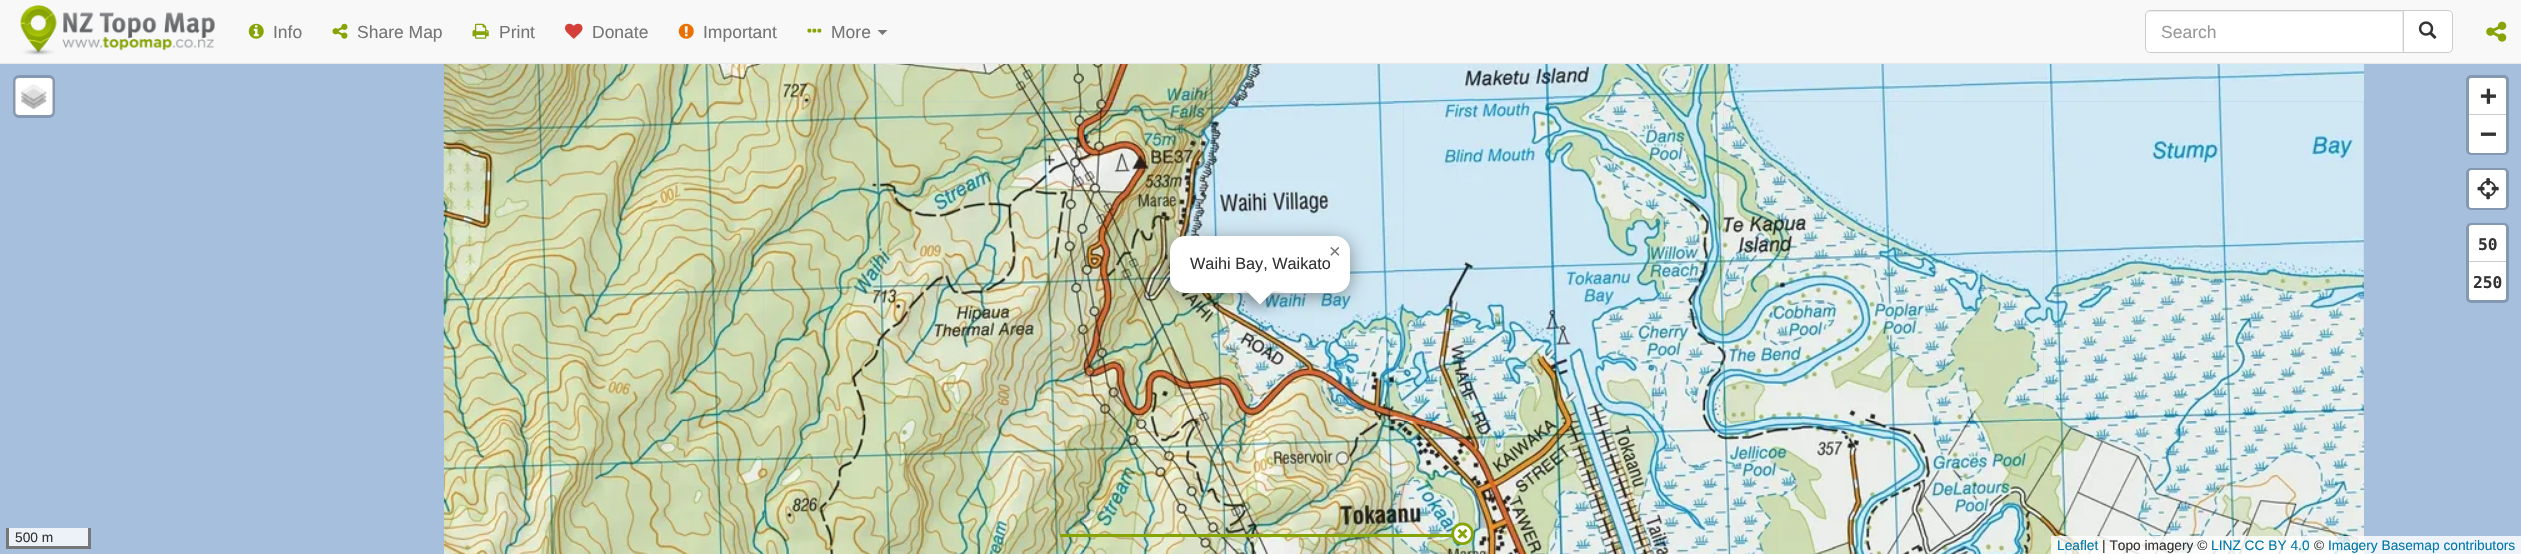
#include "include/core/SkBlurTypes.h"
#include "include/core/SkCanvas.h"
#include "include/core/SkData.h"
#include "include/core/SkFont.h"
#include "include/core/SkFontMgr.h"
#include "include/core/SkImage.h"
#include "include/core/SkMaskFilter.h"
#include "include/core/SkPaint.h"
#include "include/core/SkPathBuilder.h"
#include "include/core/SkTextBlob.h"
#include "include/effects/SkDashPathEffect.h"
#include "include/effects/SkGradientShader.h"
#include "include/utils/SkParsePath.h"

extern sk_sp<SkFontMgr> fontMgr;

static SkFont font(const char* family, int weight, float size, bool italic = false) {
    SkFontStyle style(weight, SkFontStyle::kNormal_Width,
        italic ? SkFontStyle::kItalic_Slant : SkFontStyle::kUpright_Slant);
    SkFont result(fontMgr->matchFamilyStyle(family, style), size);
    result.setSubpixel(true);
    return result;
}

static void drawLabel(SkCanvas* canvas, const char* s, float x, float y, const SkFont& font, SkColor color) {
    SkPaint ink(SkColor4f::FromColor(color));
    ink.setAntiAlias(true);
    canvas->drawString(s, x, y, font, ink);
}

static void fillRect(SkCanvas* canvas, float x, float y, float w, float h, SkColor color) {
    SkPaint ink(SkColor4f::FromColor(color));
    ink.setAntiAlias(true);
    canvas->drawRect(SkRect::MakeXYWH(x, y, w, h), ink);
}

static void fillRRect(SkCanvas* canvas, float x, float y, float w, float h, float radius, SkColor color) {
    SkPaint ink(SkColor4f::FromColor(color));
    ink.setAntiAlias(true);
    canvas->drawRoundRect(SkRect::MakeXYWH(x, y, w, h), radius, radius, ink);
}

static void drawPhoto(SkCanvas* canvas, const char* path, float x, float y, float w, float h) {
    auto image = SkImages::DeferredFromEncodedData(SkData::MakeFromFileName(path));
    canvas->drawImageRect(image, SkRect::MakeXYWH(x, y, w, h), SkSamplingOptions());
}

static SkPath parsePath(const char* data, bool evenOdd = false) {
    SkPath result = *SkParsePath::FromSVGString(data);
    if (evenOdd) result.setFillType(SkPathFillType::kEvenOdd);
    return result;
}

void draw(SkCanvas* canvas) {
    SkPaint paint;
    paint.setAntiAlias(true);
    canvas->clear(0xFFA5BFDD);
    fillRect(canvas, 0, 0, 2521, 63, 0xFFF8F8F8);
    fillRect(canvas, 0, 63, 2521, 1, 0xFFE7E7E7);
    drawPhoto(canvas, "assets/img1.png", 19, 5, 196, 50);
    drawPhoto(canvas, "assets/img2.png", 248, 23, 16, 16);
    SkFont font1 = font("Liberation Sans", 400, 17.5f);
    drawLabel(canvas, "Info", 273, 38, font1, 0xFF757575);
    drawPhoto(canvas, "assets/img3.png", 332, 23, 16, 16);
    drawLabel(canvas, "Share Map", 357, 38, font1, 0xFF757575);
    drawPhoto(canvas, "assets/img4.png", 472, 23, 17, 16);
    drawLabel(canvas, "Print", 499, 38, font1, 0xFF757575);
    drawPhoto(canvas, "assets/img5.png", 565, 23, 18, 16);
    drawLabel(canvas, "Donate", 592, 38, font1, 0xFF757575);
    drawPhoto(canvas, "assets/img6.png", 678, 23, 16, 16);
    drawLabel(canvas, "Important", 703, 38, font1, 0xFF757575);
    drawPhoto(canvas, "assets/img7.png", 807, 28, 15, 5);
    drawLabel(canvas, "More", 831, 38, font1, 0xFF757575);
    paint.setColor(0xFF777777);
    canvas->drawPath(parsePath("M877.5 30H887.5L882.5 35Z"), paint);
    paint.setColor(0xFFFFFFFF);
    canvas->drawPath(parsePath("M2150 10H2404V53H2150C2147 53 2145 51 2145 48V15C2145 12 2147 10 2150 10Z"), paint);
    paint.setColor(0xFFECECEC);
    canvas->drawPath(parsePath("M2150 12H2402V51H2403V11H2150C2148 11 2146 13 2146 15V16C2146 14 2148 12 2150 12Z"), paint);
    paint.setStroke(true);
    paint.setStrokeWidth(1);
    paint.setColor(0xFFCCCCCC);
    canvas->drawPath(parsePath("M2150 10.5H2403.5V52.5H2150C2147.5 52.5 2145.5 50.5 2145.5 48V15C2145.5 12.5 2147.5 10.5 2150 10.5Z"), paint);
    drawLabel(canvas, "Search", 2161, 38, font1, 0xFF999999);
    paint.setStroke(false);
    paint.setColor(0xFFFFFFFF);
    canvas->drawPath(parsePath("M2403.5 10.5H2448C2450.5 10.5 2452.5 12.5 2452.5 15V48C2452.5 50.5 2450.5 52.5 2448 52.5H2403.5Z"), paint);
    paint.setStroke(true);
    paint.setColor(0xFFCCCCCC);
    canvas->drawPath(parsePath("M2403.5 10.5H2448C2450.5 10.5 2452.5 12.5 2452.5 15V48C2452.5 50.5 2450.5 52.5 2448 52.5H2403.5Z"), paint);
    drawPhoto(canvas, "assets/img8.png", 2418, 21, 19, 18);
    drawPhoto(canvas, "assets/img9.png", 2486, 21, 21, 21);
    fillRRect(canvas, 15, 78, 38, 37, 4, 0xFFFFFFFF);
    paint.setStrokeWidth(3);
    paint.setColor(0x33000000);
    canvas->drawRoundRect(SkRect::MakeXYWH(14.5f, 76.5f, 39, 40), 4.5f, 4.5f, paint);
    drawPhoto(canvas, "assets/img10.png", 21, 84, 26, 25);
    paint.setColor(0xFF8499B1);
    canvas->drawRoundRect(SkRect::MakeXYWH(2467.5f, 76.5f, 40, 77), 3.5f, 3.5f, paint);
    paint.setStroke(false);
    paint.setColor(0xFFFFFFFF);
    canvas->drawPath(parsePath("M2471.5 78H2503.5C2505 78 2506 79 2506 80.5V115H2469V80.5C2469 79 2470 78 2471.5 78Z"), paint);
    fillRect(canvas, 2469, 114, 37, 1, 0xFFCCCCCC);
    SkFont font2 = font("DejaVu Sans Mono", 700, 28);
    drawLabel(canvas, "+", 2480, 105, font2, 0xFF333333);
    canvas->drawPath(parsePath("M2469 115H2506V150.5C2506 152 2505 153 2503.5 153H2471.5C2470 153 2469 152 2469 150.5Z"), paint);
    drawLabel(canvas, "−", 2480, 143, font2, 0xFF333333);
    paint.setStroke(true);
    paint.setColor(0xFF8499B1);
    canvas->drawRoundRect(SkRect::MakeXYWH(2467.5f, 169.5f, 40, 39), 3.5f, 3.5f, paint);
    fillRRect(canvas, 2469, 170, 37, 38, 2.5f, 0xFFFFFFFF);
    drawPhoto(canvas, "assets/img11.png", 2477, 178, 22, 22);
    canvas->drawRoundRect(SkRect::MakeXYWH(2467.5f, 224.5f, 40, 77), 3.5f, 3.5f, paint);
    paint.setStroke(false);
    paint.setColor(0xFFFFFFFF);
    canvas->drawPath(parsePath("M2471.5 225H2503.5C2505 225 2506 226 2506 227.5V263H2469V227.5C2469 226 2470 225 2471.5 225Z"), paint);
    fillRect(canvas, 2469, 261, 37, 1, 0xFFCCCCCC);
    SkFont font3 = font("DejaVu Sans Mono", 700, 16.25f);
    drawLabel(canvas, "50", 2478, 250, font3, 0xFF333333);
    canvas->drawPath(parsePath("M2469 263H2506V297.5C2506 299 2505 300 2503.5 300H2471.5C2470 300 2469 299 2469 297.5Z"), paint);
    drawLabel(canvas, "250", 2473, 288, font3, 0xFF333333);
    fillRect(canvas, 9, 528, 79, 18, 0xFFEDF2F8);
    fillRect(canvas, 88, 528, 3, 21, 0xFF777777);
    fillRect(canvas, 6, 546, 84, 3, 0xFF777777);
    fillRect(canvas, 6, 528, 3, 21, 0xFF777777);
    SkFont font4 = font("Liberation Sans", 400, 13.75f);
    drawLabel(canvas, "500 m", 15, 542, font4, 0xFF333333);
    drawPhoto(canvas, "assets/img26.png", 764, 421, 320, 133);
    drawPhoto(canvas, "assets/img27.png", 1084, 421, 320, 133);
    drawPhoto(canvas, "assets/img21.png", 1083, 101, 321, 320);
    drawPhoto(canvas, "assets/img22.png", 1403, 101, 321, 321);
    drawPhoto(canvas, "assets/img28.png", 1404, 421, 320, 133);
    fillRect(canvas, 1060, 534, 392, 3, 0xFF86A406);
    drawPhoto(canvas, "assets/img12.png", 1451, 522, 23, 23);
    drawPhoto(canvas, "assets/img23.png", 1723, 101, 321, 321);
    drawPhoto(canvas, "assets/img29.png", 1724, 421, 320, 133);
    drawPhoto(canvas, "assets/img24.png", 2043, 101, 321, 321);
    drawPhoto(canvas, "assets/img30.png", 2044, 421, 320, 133);
    fillRect(canvas, 2051, 536, 470, 18, 0xCCFFFFFF);
    drawLabel(canvas, "Leaflet", 2057, 550, font4, 0xFF0078A8);
    drawLabel(canvas, "| Topo imagery ©", 2102, 550, font4, 0xFF333333);
    drawLabel(canvas, "LINZ CC BY 4.0", 2211, 550, font4, 0xFF0078A8);
    drawLabel(canvas, "©", 2314, 550, font4, 0xFF333333);
    drawLabel(canvas, "Imagery Basemap contributors", 2328, 550, font4, 0xFF0078A8);
    drawPhoto(canvas, "assets/img13.png", 444, 64, 320, 37);
    drawPhoto(canvas, "assets/img14.png", 764, 64, 320, 37);
    drawPhoto(canvas, "assets/img15.png", 1084, 64, 320, 37);
    drawPhoto(canvas, "assets/img16.png", 1404, 64, 320, 37);
    drawPhoto(canvas, "assets/img17.png", 1724, 64, 320, 37);
    drawPhoto(canvas, "assets/img18.png", 2044, 64, 320, 37);
    drawPhoto(canvas, "assets/img20.png", 763, 101, 321, 320);
    drawPhoto(canvas, "assets/img19.png", 443, 101, 321, 321);
    drawPhoto(canvas, "assets/img25.png", 444, 421, 320, 133);
    paint.setColor(0x66000000);
    paint.setMaskFilter(SkMaskFilter::MakeBlur(kNormal_SkBlurStyle, 9));
    canvas->drawRoundRect(SkRect::MakeXYWH(1170, 240, 180, 56), 15, 15, paint);
    paint.setMaskFilter(nullptr);
    fillRRect(canvas, 1170, 236, 180, 57, 15, 0xFFFFFFFF);
    SkFont font5 = font("Liberation Sans", 400, 20);
    drawLabel(canvas, "×", 1329, 258, font5, 0xFF757575);
    canvas->save();
    canvas->clipRect(SkRect::MakeXYWH(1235, 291, 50, 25));
    paint.setMaskFilter(SkMaskFilter::MakeBlur(kNormal_SkBlurStyle, 9));
    canvas->drawRect(SkRect::MakeXYWH(1250, 283, 21, 21), paint);
    paint.setMaskFilter(nullptr);
    canvas->restore();
    canvas->save();
    canvas->clipRect(SkRect::MakeXYWH(1235, 291, 50, 25));
    paint.setColor(0xFFFFFFFF);
    canvas->drawPath(parsePath("M1260 274.5L1275 289.5L1260 304.5L1245 289.5Z"), paint);
    canvas->restore();
    SkFont font6 = font("Liberation Sans", 400, 16.25f);
    drawLabel(canvas, "Waihi Bay, Waikato", 1190, 269, font6, 0xFF333333);
}
